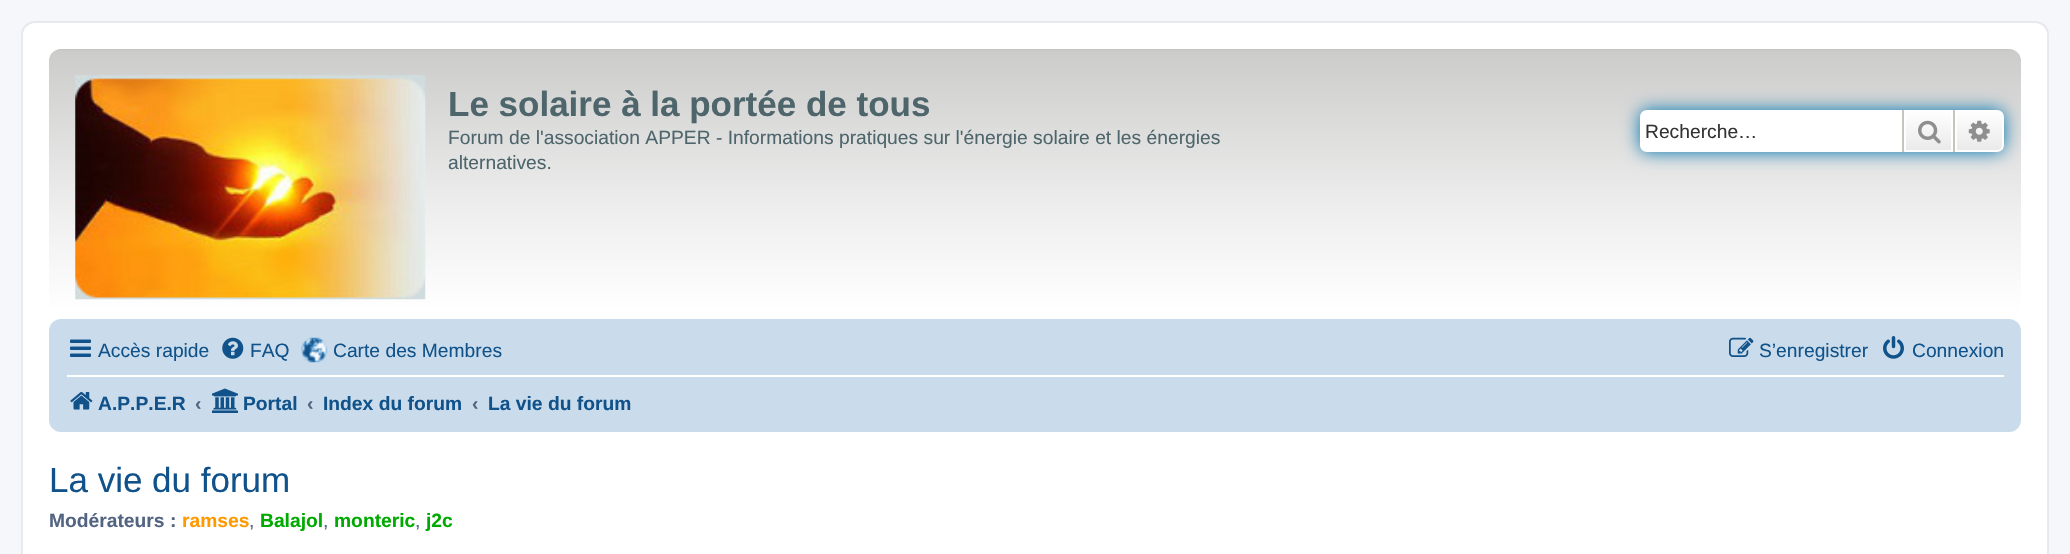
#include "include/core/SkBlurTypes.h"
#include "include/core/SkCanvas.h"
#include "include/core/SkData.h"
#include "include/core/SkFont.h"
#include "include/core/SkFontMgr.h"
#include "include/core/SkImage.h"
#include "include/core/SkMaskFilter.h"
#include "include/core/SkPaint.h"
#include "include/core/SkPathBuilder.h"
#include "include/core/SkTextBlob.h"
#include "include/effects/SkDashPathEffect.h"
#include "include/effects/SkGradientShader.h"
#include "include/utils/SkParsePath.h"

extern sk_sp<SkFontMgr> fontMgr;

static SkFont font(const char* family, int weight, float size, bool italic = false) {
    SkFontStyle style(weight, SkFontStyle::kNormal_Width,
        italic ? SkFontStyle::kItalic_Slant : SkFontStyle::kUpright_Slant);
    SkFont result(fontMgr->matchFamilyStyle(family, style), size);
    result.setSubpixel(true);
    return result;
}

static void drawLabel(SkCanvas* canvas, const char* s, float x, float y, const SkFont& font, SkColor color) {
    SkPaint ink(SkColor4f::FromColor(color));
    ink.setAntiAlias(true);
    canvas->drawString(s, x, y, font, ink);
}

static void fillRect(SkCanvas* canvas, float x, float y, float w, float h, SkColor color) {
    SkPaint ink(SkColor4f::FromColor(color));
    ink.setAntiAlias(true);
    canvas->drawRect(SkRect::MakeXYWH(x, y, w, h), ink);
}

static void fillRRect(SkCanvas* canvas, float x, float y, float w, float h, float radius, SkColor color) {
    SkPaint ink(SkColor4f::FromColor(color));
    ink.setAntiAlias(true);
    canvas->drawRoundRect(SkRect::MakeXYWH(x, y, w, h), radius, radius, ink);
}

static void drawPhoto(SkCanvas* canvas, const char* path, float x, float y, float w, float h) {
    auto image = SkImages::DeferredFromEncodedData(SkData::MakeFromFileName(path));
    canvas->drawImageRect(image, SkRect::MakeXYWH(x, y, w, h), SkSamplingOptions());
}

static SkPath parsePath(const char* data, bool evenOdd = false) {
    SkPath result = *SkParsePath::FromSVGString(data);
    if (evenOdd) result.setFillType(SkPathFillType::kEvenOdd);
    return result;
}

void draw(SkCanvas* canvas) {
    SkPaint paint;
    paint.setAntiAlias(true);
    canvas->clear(0xFFF5F7FA);
    paint.setColor(0xFFFFFFFF);
    canvas->drawRoundRect(SkRect::MakeXYWH(22, 22, 2026, 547), 13, 13, paint);
    paint.setStroke(true);
    paint.setStrokeWidth(2);
    paint.setColor(0xFFE6E9ED);
    canvas->drawRoundRect(SkRect::MakeXYWH(22, 22, 2026, 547), 13, 13, paint);
    paint.setStroke(false);
    {
        const SkColor colors[] = {0xFFC3C3C2, 0xFFCCCCCB, 0xFFEEEEEE, 0xFFFFFFFF};
        const float stops[] = {0, 0.01f, 0.61f, 1};
        const SkPoint ends[] = {{1035, 49}, {1035, 312}};
        paint.setShader(SkGradientShader::MakeLinear(ends, colors, stops, 4, SkTileMode::kClamp));
        paint.setAlpha(255);
    }
    canvas->drawRoundRect(SkRect::MakeXYWH(49, 49, 1972, 263), 12, 12, paint);
    drawPhoto(canvas, "assets/img1.png", 75, 75, 351, 225);
    SkFont font1 = font("Liberation Sans", 700, 35);
    drawLabel(canvas, "Le solaire à la portée de tous", 448, 116, font1, 0xFF4D656B);
    SkFont font2 = font("Liberation Sans", 400, 19.25f);
    drawLabel(canvas, "Forum de l'association APPER - Informations pratiques sur l'énergie solaire et les énergies", 448, 144, font2, 0xFF4D656B);
    drawLabel(canvas, "alternatives.", 448, 169, font2, 0xFF4D656B);
    paint.setShader(nullptr);
    paint.setColor(0xFF0075B0);
    paint.setMaskFilter(SkMaskFilter::MakeBlur(kNormal_SkBlurStyle, 9));
    canvas->drawRoundRect(SkRect::MakeXYWH(1640, 110, 364, 42), 7, 7, paint);
    paint.setMaskFilter(nullptr);
    paint.setColor(0xFFFFFFFF);
    canvas->drawPath(parsePath("M1647 110H1902V152H1647C1643 152 1640 149 1640 145V117C1640 113 1643 110 1647 110Z"), paint);
    drawLabel(canvas, "Recherche…", 1645, 138, font2, 0xFF333333);
    {
        const SkColor colors[] = {0xFFFFFFFF, 0xFFE9E9E9};
        const float stops[] = {0, 1};
        const SkPoint ends[] = {{1929, 110}, {1929, 152}};
        paint.setShader(SkGradientShader::MakeLinear(ends, colors, stops, 2, SkTileMode::kClamp));
        paint.setAlpha(255);
    }
    canvas->drawRect(SkRect::MakeXYWH(1906, 112, 45, 38), paint);
    paint.setStroke(true);
    paint.setShader(nullptr);
    paint.setColor(0xFFFFFFFF);
    canvas->drawRect(SkRect::MakeXYWH(1905, 111, 47, 40), paint);
    fillRect(canvas, 1953, 110, 2, 42, 0xFFC7C3BF);
    fillRect(canvas, 1902, 110, 2, 42, 0xFFC7C3BF);
    drawPhoto(canvas, "assets/img2.png", 1918, 120, 23, 24);
    paint.setStroke(false);
    {
        const SkColor colors[] = {0xFFFFFFFF, 0xFFE9E9E9};
        const float stops[] = {0, 1};
        const SkPoint ends[] = {{1979, 110}, {1979, 152}};
        paint.setShader(SkGradientShader::MakeLinear(ends, colors, stops, 2, SkTileMode::kClamp));
        paint.setAlpha(255);
    }
    canvas->drawPath(parsePath("M1956 111H1997C2000.5 111 2003 113.5 2003 117V145C2003 148.5 2000.5 151 1997 151H1956Z"), paint);
    paint.setStroke(true);
    paint.setShader(nullptr);
    paint.setColor(0xFFFFFFFF);
    canvas->drawPath(parsePath("M1956 111H1997C2000.5 111 2003 113.5 2003 117V145C2003 148.5 2000.5 151 1997 151H1956Z"), paint);
    drawPhoto(canvas, "assets/img3.png", 1968, 120, 22, 22);
    fillRRect(canvas, 49, 319, 1972, 113, 12, 0xFFCADCEB);
    drawPhoto(canvas, "assets/img4.png", 70, 339, 21, 18);
    drawLabel(canvas, "Accès rapide", 98, 357, font2, 0xFF105289);
    drawPhoto(canvas, "assets/img5.png", 222, 337, 22, 22);
    drawLabel(canvas, "FAQ", 250, 357, font2, 0xFF105289);
    drawPhoto(canvas, "assets/img6.png", 301, 337, 27, 26);
    drawLabel(canvas, "Carte des Membres", 333, 357, font2, 0xFF105289);
    drawPhoto(canvas, "assets/img7.png", 1729, 337, 25, 20);
    drawLabel(canvas, "S’enregistrer", 1759, 357, font2, 0xFF105289);
    drawPhoto(canvas, "assets/img8.png", 1883, 336, 21, 23);
    drawLabel(canvas, "Connexion", 1912, 357, font2, 0xFF105289);
    fillRect(canvas, 67, 375, 1937, 2, 0xFFFFFFFF);
    drawPhoto(canvas, "assets/img9.png", 70, 392, 23, 18);
    SkFont font3 = font("Liberation Sans", 700, 19.25f);
    drawLabel(canvas, "A.P.P.E.R", 98, 410, font3, 0xFF105289);
    drawLabel(canvas, "‹", 195, 410, font3, 0xFF536482);
    drawPhoto(canvas, "assets/img10.png", 212, 388, 26, 25);
    drawLabel(canvas, "Portal", 243, 410, font3, 0xFF105289);
    drawLabel(canvas, "‹", 307, 410, font3, 0xFF536482);
    drawLabel(canvas, "Index du forum", 323, 410, font3, 0xFF105289);
    drawLabel(canvas, "‹", 472, 410, font3, 0xFF536482);
    drawLabel(canvas, "La vie du forum", 488, 410, font3, 0xFF105289);
    SkFont font4 = font("Liberation Sans", 400, 35);
    drawLabel(canvas, "La vie du forum", 49, 492, font4, 0xFF105289);
    drawLabel(canvas, "Modérateurs :", 49, 527, font3, 0xFF536482);
    drawLabel(canvas, "ramses", 182, 527, font3, 0xFFFF9900);
    drawLabel(canvas, ",", 249, 527, font2, 0xFF536482);
    drawLabel(canvas, "Balajol", 260, 527, font3, 0xFF00AA00);
    drawLabel(canvas, ",", 323, 527, font2, 0xFF536482);
    drawLabel(canvas, "monteric", 334, 527, font3, 0xFF00AA00);
    drawLabel(canvas, ",", 415, 527, font2, 0xFF536482);
    drawLabel(canvas, "j2c", 426, 527, font3, 0xFF00AA00);
}
